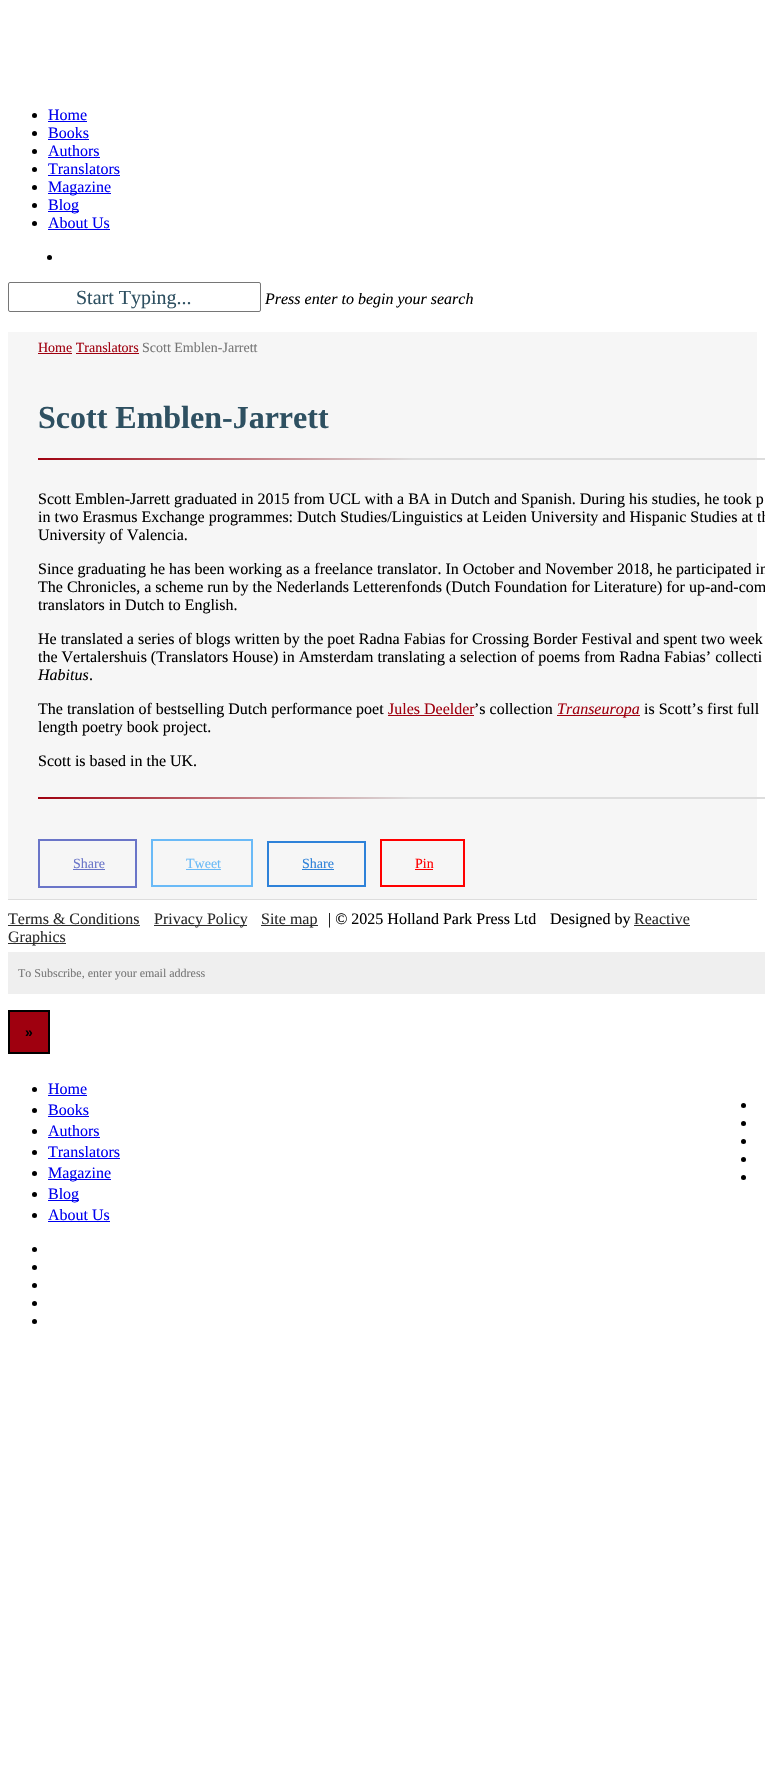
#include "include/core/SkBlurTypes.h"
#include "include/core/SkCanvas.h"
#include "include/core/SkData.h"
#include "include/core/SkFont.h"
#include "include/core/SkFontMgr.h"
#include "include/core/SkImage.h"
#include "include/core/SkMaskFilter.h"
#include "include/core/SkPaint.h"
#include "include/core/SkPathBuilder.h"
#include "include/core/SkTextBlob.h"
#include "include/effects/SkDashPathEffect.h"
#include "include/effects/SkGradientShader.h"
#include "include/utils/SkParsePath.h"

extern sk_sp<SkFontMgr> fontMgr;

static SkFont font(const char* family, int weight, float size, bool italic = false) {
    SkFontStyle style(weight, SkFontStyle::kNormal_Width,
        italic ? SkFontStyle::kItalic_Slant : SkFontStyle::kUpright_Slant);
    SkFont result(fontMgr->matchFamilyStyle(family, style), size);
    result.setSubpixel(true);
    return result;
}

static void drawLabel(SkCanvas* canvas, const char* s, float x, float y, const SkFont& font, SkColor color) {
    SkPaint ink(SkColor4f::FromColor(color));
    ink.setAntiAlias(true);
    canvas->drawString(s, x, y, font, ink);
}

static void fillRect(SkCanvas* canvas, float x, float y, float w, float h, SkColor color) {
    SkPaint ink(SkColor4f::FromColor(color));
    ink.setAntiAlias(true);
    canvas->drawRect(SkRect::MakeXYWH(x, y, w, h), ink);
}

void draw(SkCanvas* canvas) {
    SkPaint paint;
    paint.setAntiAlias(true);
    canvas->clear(0xFFFFFFFF);
    paint.setColor(0xFF000000);
    canvas->drawCircle(34.5f, 115.5f, 2.5f, paint);
    SkFont font1 = font("Liberation Serif", 400, 16);
    drawLabel(canvas, "Home", 48, 120, font1, 0xFF0000EE);
    fillRect(canvas, 48, 121, 39, 1, 0xFF0000EE);
    canvas->drawCircle(34.5f, 133.5f, 2.5f, paint);
    drawLabel(canvas, "Books", 48, 138, font1, 0xFF0000EE);
    fillRect(canvas, 48, 139, 41, 1, 0xFF0000EE);
    canvas->drawCircle(34.5f, 151.5f, 2.5f, paint);
    drawLabel(canvas, "Authors", 48, 156, font1, 0xFF0000EE);
    fillRect(canvas, 48, 157, 52, 1, 0xFF0000EE);
    canvas->drawCircle(34.5f, 169.5f, 2.5f, paint);
    drawLabel(canvas, "Translators", 48, 174, font1, 0xFF0000EE);
    fillRect(canvas, 48, 175, 72, 1, 0xFF0000EE);
    canvas->drawCircle(34.5f, 187.5f, 2.5f, paint);
    fillRect(canvas, 48, 193, 63, 1, 0xFF0000EE);
    drawLabel(canvas, "Magazine", 48, 192, font1, 0xFF0000EE);
    canvas->drawCircle(34.5f, 205.5f, 2.5f, paint);
    fillRect(canvas, 48, 211, 31, 1, 0xFF0000EE);
    drawLabel(canvas, "Blog", 48, 210, font1, 0xFF0000EE);
    canvas->drawCircle(34.5f, 223.5f, 2.5f, paint);
    drawLabel(canvas, "About Us", 48, 228, font1, 0xFF0000EE);
    fillRect(canvas, 48, 229, 62, 1, 0xFF0000EE);
    canvas->drawCircle(49.5f, 257.5f, 2.5f, paint);
    paint.setStroke(true);
    paint.setStrokeWidth(1);
    paint.setColor(0xFF767676);
    canvas->drawRoundRect(SkRect::MakeXYWH(8.5f, 282.5f, 252, 29), 1.5f, 1.5f, paint);
    SkFont font2 = font("Liberation Serif", 400, 20);
    drawLabel(canvas, "Start Typing...", 76, 304, font2, 0xFF2E5061);
    SkFont font3 = font("Liberation Serif", 400, 16, true);
    drawLabel(canvas, "Press enter to begin your search", 265, 304, font3, 0xFF000000);
    fillRect(canvas, 8, 332, 749, 567, 0xFFF6F6F6);
    SkFont font4 = font("Liberation Serif", 400, 14);
    drawLabel(canvas, "Home Translators", 38, 352, font4, 0xFF9F000F);
    fillRect(canvas, 38, 353, 34, 1, 0xFF9F000F);
    drawLabel(canvas, "Scott Emblen-Jarrett", 142, 352, font4, 0xFF777777);
    fillRect(canvas, 76, 353, 63, 1, 0xFF9F000F);
    SkFont font5 = font("Liberation Serif", 700, 32);
    drawLabel(canvas, "Scott Emblen-Jarrett", 38, 428, font5, 0xFF2E5061);
    paint.setStroke(false);
    {
        const SkColor colors[] = {0xFF9F000F, 0xFFDDDDDD, 0xFFDDDDDD};
        const float stops[] = {0, 0.5f, 1};
        const SkPoint ends[] = {{38, 459}, {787, 459}};
        paint.setShader(SkGradientShader::MakeLinear(ends, colors, stops, 3, SkTileMode::kClamp));
        paint.setAlpha(255);
    }
    canvas->drawRect(SkRect::MakeXYWH(38, 458, 727, 2), paint);
    drawLabel(canvas, "Scott Emblen-Jarrett graduated in 2015 from UCL with a BA in Dutch and Spanish. During his studies, he took p", 38, 504, font1, 0xFF000000);
    drawLabel(canvas, "in two Erasmus Exchange programmes: Dutch Studies/Linguistics at Leiden University and Hispanic Studies at th", 38, 522, font1, 0xFF000000);
    drawLabel(canvas, "University of Valencia.", 38, 540, font1, 0xFF000000);
    drawLabel(canvas, "Since graduating he has been working as a freelance translator. In October and November 2018, he participated in", 38, 574, font1, 0xFF000000);
    drawLabel(canvas, "The Chronicles, a scheme run by the Nederlands Letterenfonds (Dutch Foundation for Literature) for up-and-com", 38, 592, font1, 0xFF000000);
    drawLabel(canvas, "translators in Dutch to English.", 38, 610, font1, 0xFF000000);
    drawLabel(canvas, "He translated a series of blogs written by the poet Radna Fabias for Crossing Border Festival and spent two week", 38, 644, font1, 0xFF000000);
    drawLabel(canvas, "the Vertalershuis (Translators House) in Amsterdam translating a selection of poems from Radna Fabias’ collecti", 38, 662, font1, 0xFF000000);
    drawLabel(canvas, "Habitus", 38, 680, font3, 0xFF000000);
    drawLabel(canvas, ".", 89, 680, font1, 0xFF000000);
    drawLabel(canvas, "The translation of bestselling Dutch performance poet", 38, 714, font1, 0xFF000000);
    drawLabel(canvas, "Jules Deelder", 388, 714, font1, 0xFF9F000F);
    fillRect(canvas, 388, 715, 86, 1, 0xFF9F000F);
    drawLabel(canvas, "’s collection", 474, 714, font1, 0xFF000000);
    fillRect(canvas, 557, 715, 83, 1, 0xFF9F000F);
    drawLabel(canvas, "Transeuropa", 557, 714, font3, 0xFF9F000F);
    drawLabel(canvas, "is Scott’s first full", 644, 714, font1, 0xFF000000);
    drawLabel(canvas, "length poetry book project.", 38, 732, font1, 0xFF000000);
    drawLabel(canvas, "Scott is based in the UK.", 38, 766, font1, 0xFF000000);
    {
        const SkColor colors[] = {0xFF9F000F, 0xFFDDDDDD, 0xFFDDDDDD};
        const float stops[] = {0, 0.5f, 1};
        const SkPoint ends[] = {{38, 798}, {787, 798}};
        paint.setShader(SkGradientShader::MakeLinear(ends, colors, stops, 3, SkTileMode::kClamp));
        paint.setAlpha(255);
    }
    canvas->drawRect(SkRect::MakeXYWH(38, 797, 727, 2), paint);
    paint.setStroke(true);
    paint.setStrokeWidth(2);
    paint.setShader(nullptr);
    paint.setColor(0xFF6A75C8);
    canvas->drawRect(SkRect::MakeXYWH(39, 840, 97, 47), paint);
    drawLabel(canvas, "Share", 73, 868, font4, 0xFF6A75C8);
    fillRect(canvas, 73, 869, 32, 1, 0xFF6A75C8);
    paint.setColor(0xFF6ABAF7);
    canvas->drawRect(SkRect::MakeXYWH(152, 840, 100, 46), paint);
    drawLabel(canvas, "Tweet", 186, 868, font4, 0xFF6ABAF7);
    fillRect(canvas, 186, 869, 35, 1, 0xFF6ABAF7);
    paint.setColor(0xFF2E82D9);
    canvas->drawRect(SkRect::MakeXYWH(268, 842, 97, 44), paint);
    drawLabel(canvas, "Share", 302, 868, font4, 0xFF2E82D9);
    fillRect(canvas, 302, 869, 32, 1, 0xFF2E82D9);
    paint.setColor(0xFFFF0000);
    canvas->drawRect(SkRect::MakeXYWH(381, 840, 83, 46), paint);
    drawLabel(canvas, "Pin", 415, 868, font4, 0xFFFF0000);
    fillRect(canvas, 415, 869, 18, 1, 0xFFFF0000);
    fillRect(canvas, 8, 899, 749, 1, 0xFFDDDDDD);
    drawLabel(canvas, "Terms & Conditions", 8, 924, font1, 0xFF2C2C2C);
    fillRect(canvas, 8, 925, 132, 1, 0xFF2C2C2C);
    fillRect(canvas, 154, 925, 93, 1, 0xFF2C2C2C);
    drawLabel(canvas, "Privacy Policy", 154, 924, font1, 0xFF2C2C2C);
    fillRect(canvas, 261, 925, 57, 1, 0xFF2C2C2C);
    drawLabel(canvas, "Site map", 261, 924, font1, 0xFF2C2C2C);
    drawLabel(canvas, "| © 2025 Holland Park Press Ltd", 328, 924, font1, 0xFF000000);
    drawLabel(canvas, "Designed by", 550, 924, font1, 0xFF000000);
    drawLabel(canvas, "Reactive", 634, 924, font1, 0xFF2C2C2C);
    fillRect(canvas, 634, 925, 56, 1, 0xFF2C2C2C);
    fillRect(canvas, 8, 943, 58, 1, 0xFF2C2C2C);
    drawLabel(canvas, "Graphics", 8, 942, font1, 0xFF2C2C2C);
    fillRect(canvas, 8, 952, 757, 42, 0xFFEFEFEF);
    SkFont font6 = font("Liberation Serif", 400, 12);
    drawLabel(canvas, "To Subscribe, enter your email address", 18, 977, font6, 0xFF777777);
    paint.setStroke(false);
    paint.setColor(0xFF9F000F);
    canvas->drawRect(SkRect::MakeXYWH(9, 1011, 40, 42), paint);
    paint.setStroke(true);
    paint.setColor(0xFF000000);
    canvas->drawRect(SkRect::MakeXYWH(9, 1011, 40, 42), paint);
    SkFont font7 = font("Liberation Sans", 700, 14);
    drawLabel(canvas, "»", 25, 1037, font7, 0xFF000000);
    paint.setStroke(false);
    canvas->drawCircle(743.5f, 1105.5f, 2.5f, paint);
    canvas->drawCircle(743.5f, 1123.5f, 2.5f, paint);
    canvas->drawCircle(743.5f, 1141.5f, 2.5f, paint);
    canvas->drawCircle(743.5f, 1159.5f, 2.5f, paint);
    canvas->drawCircle(743.5f, 1177.5f, 2.5f, paint);
    canvas->drawCircle(34.5f, 1089.5f, 2.5f, paint);
    drawLabel(canvas, "Home", 48, 1094, font1, 0xFF0000EE);
    fillRect(canvas, 48, 1095, 39, 1, 0xFF0000EE);
    canvas->drawCircle(34.5f, 1110.5f, 2.5f, paint);
    drawLabel(canvas, "Books", 48, 1115, font1, 0xFF0000EE);
    fillRect(canvas, 48, 1116, 41, 1, 0xFF0000EE);
    canvas->drawCircle(34.5f, 1131.5f, 2.5f, paint);
    drawLabel(canvas, "Authors", 48, 1136, font1, 0xFF0000EE);
    fillRect(canvas, 48, 1137, 52, 1, 0xFF0000EE);
    canvas->drawCircle(34.5f, 1152.5f, 2.5f, paint);
    drawLabel(canvas, "Translators", 48, 1157, font1, 0xFF0000EE);
    fillRect(canvas, 48, 1158, 72, 1, 0xFF0000EE);
    canvas->drawCircle(34.5f, 1173.5f, 2.5f, paint);
    fillRect(canvas, 48, 1179, 63, 1, 0xFF0000EE);
    drawLabel(canvas, "Magazine", 48, 1178, font1, 0xFF0000EE);
    canvas->drawCircle(34.5f, 1194.5f, 2.5f, paint);
    fillRect(canvas, 48, 1200, 31, 1, 0xFF0000EE);
    drawLabel(canvas, "Blog", 48, 1199, font1, 0xFF0000EE);
    canvas->drawCircle(34.5f, 1215.5f, 2.5f, paint);
    drawLabel(canvas, "About Us", 48, 1220, font1, 0xFF0000EE);
    fillRect(canvas, 48, 1221, 62, 1, 0xFF0000EE);
    canvas->drawCircle(34.5f, 1249.5f, 2.5f, paint);
    canvas->drawCircle(34.5f, 1267.5f, 2.5f, paint);
    canvas->drawCircle(34.5f, 1285.5f, 2.5f, paint);
    canvas->drawCircle(34.5f, 1303.5f, 2.5f, paint);
    canvas->drawCircle(34.5f, 1321.5f, 2.5f, paint);
}
